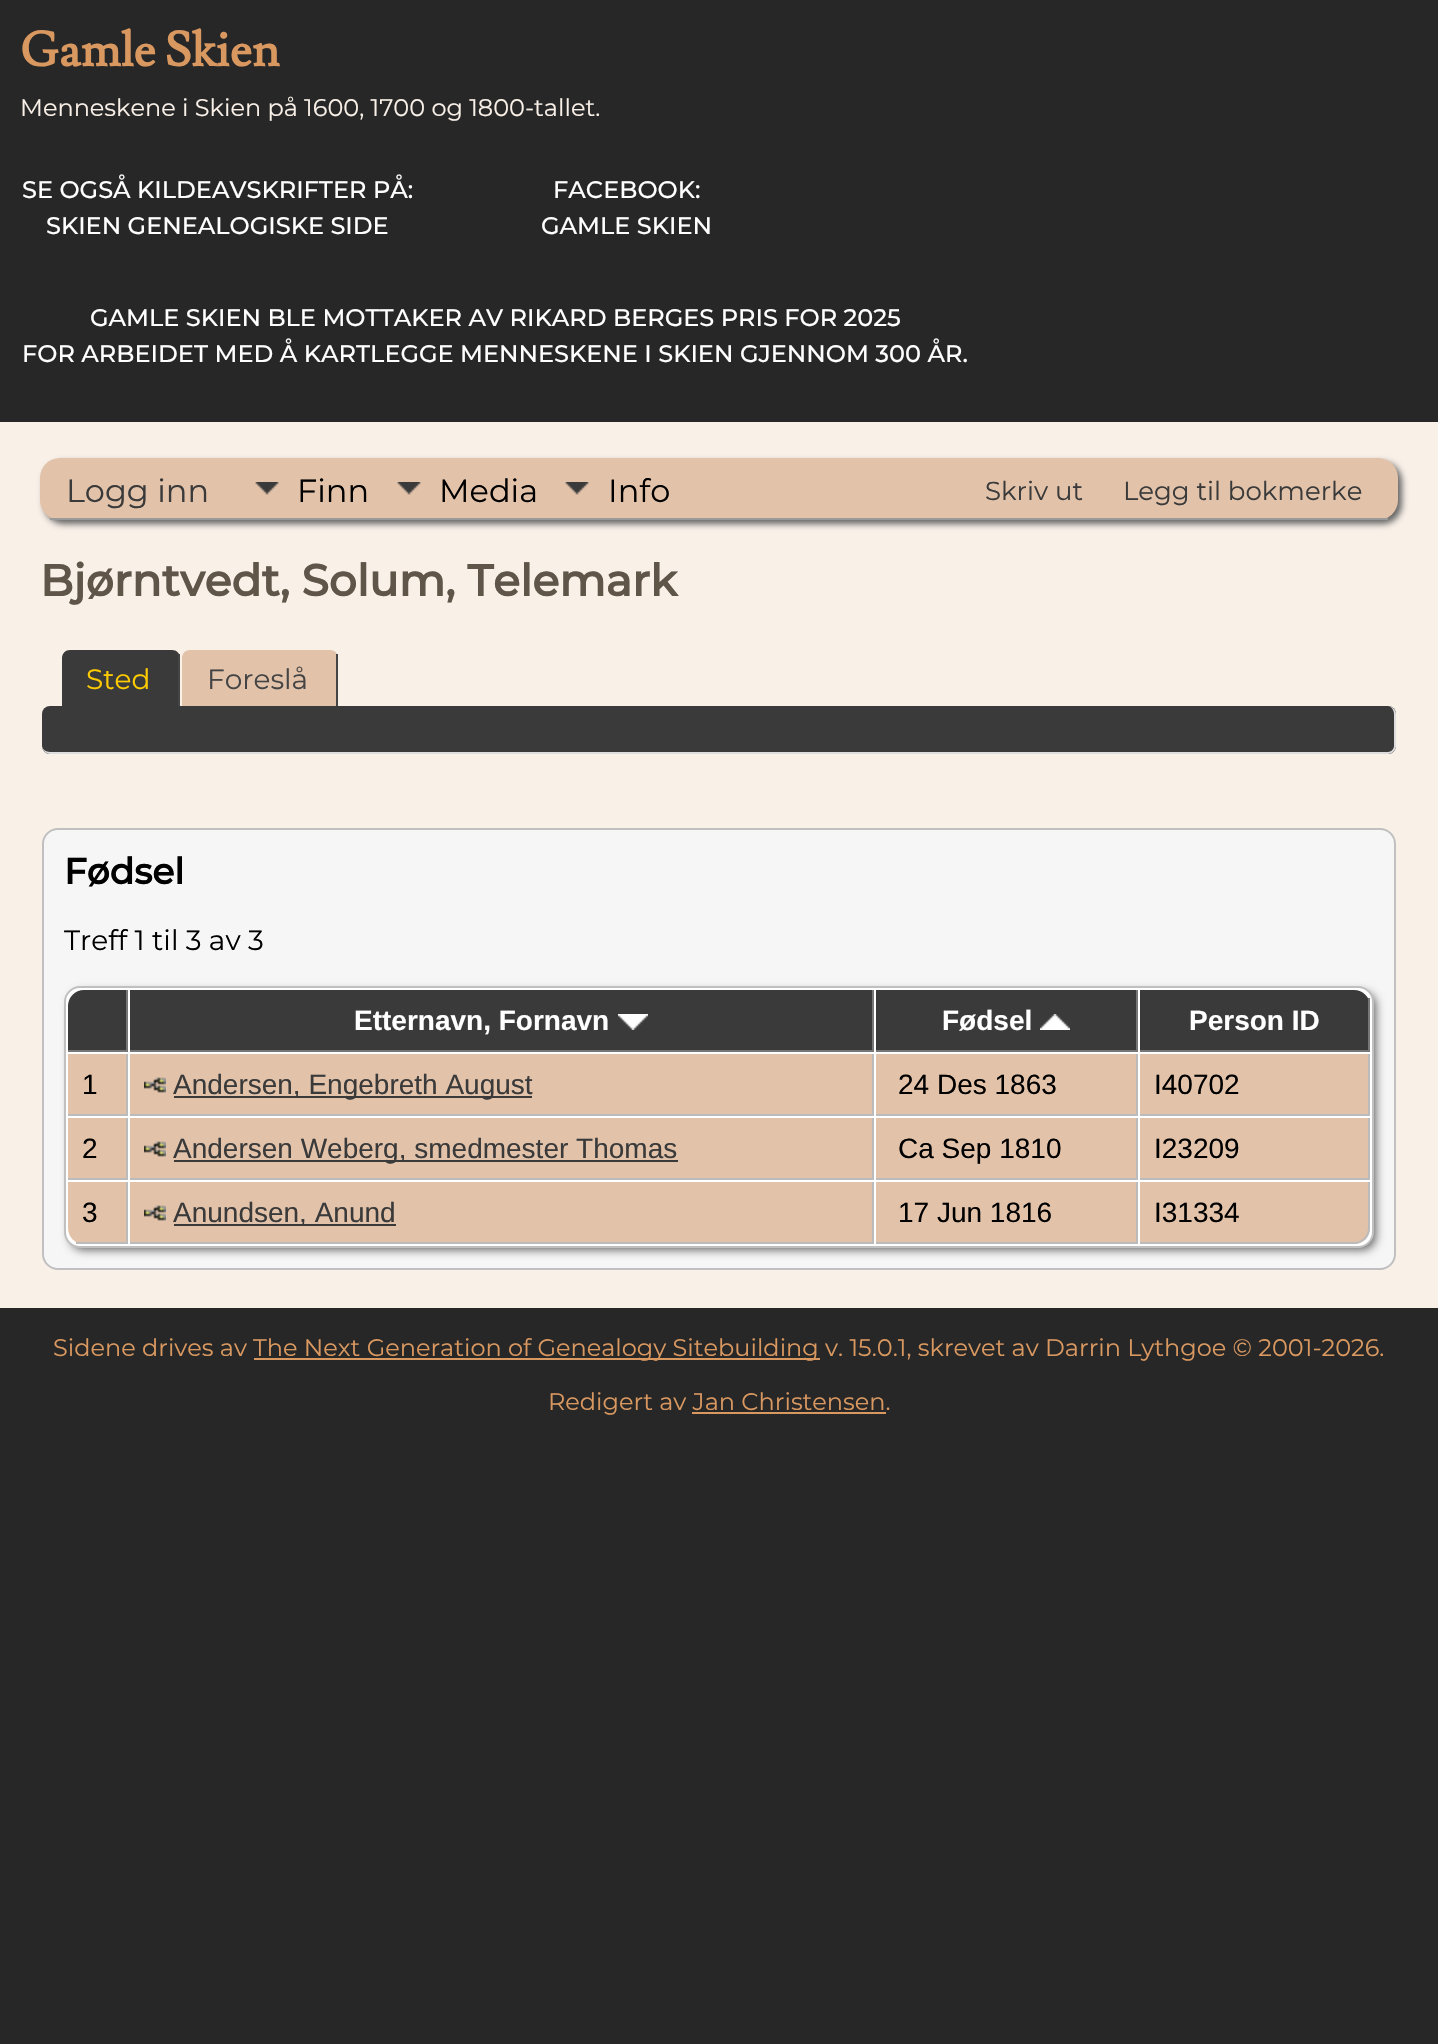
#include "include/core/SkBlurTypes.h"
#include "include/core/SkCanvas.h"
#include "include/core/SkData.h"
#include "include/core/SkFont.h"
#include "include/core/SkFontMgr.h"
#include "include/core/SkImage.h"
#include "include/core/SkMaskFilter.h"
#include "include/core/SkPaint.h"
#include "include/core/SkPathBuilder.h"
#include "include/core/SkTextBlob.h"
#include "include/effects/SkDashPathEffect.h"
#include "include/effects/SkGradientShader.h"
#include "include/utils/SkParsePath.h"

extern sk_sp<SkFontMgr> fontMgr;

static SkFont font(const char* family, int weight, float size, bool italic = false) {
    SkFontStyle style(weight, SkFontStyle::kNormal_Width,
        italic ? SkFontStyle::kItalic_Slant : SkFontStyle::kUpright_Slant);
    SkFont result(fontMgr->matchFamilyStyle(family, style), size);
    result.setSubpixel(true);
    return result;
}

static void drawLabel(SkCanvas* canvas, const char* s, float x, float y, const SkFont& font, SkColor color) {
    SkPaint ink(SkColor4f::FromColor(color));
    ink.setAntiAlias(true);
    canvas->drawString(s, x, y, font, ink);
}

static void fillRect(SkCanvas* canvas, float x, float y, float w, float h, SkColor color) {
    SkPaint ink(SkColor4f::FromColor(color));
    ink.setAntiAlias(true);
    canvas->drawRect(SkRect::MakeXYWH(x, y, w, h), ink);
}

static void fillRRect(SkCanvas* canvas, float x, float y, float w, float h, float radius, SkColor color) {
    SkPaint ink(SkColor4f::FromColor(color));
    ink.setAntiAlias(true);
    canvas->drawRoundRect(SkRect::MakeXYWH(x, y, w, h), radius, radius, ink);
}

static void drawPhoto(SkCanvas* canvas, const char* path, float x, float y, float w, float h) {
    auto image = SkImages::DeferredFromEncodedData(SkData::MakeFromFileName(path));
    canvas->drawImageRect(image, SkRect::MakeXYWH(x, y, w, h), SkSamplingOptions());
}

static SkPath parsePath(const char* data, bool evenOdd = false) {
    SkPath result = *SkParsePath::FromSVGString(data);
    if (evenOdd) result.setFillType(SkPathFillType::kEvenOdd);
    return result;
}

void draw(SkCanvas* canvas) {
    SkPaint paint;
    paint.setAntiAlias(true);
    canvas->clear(0xFF272727);
    SkFont font1 = font("Lusitana", 700, 48);
    drawLabel(canvas, "Gamle Skien", 20, 66, font1, 0xFFD99860);
    SkFont font2 = font("Montserrat", 100, 24);
    drawLabel(canvas, "Menneskene i Skien på 1600, 1700 og 1800-tallet.", 20, 116, font2, 0xFFF9F0E8);
    SkFont font3 = font("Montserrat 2", 100, 24);
    drawLabel(canvas, "SE OGSÅ KILDEAVSKRIFTER PÅ:", 22, 198, font3, 0xFFFFFFFF);
    drawLabel(canvas, "SKIEN GENEALOGISKE SIDE", 46, 234, font3, 0xFFFFFFFF);
    drawLabel(canvas, "FACEBOOK:", 553, 198, font3, 0xFFFFFFFF);
    drawLabel(canvas, "GAMLE SKIEN", 541, 234, font3, 0xFFFFFFFF);
    drawLabel(canvas, "GAMLE SKIEN BLE MOTTAKER AV RIKARD BERGES PRIS FOR 2025", 90, 326, font3, 0xFFFFFFFF);
    drawLabel(canvas, "FOR ARBEIDET MED Å KARTLEGGE MENNESKENE I SKIEN GJENNOM 300 ÅR.", 22, 362, font3, 0xFFFFFFFF);
    fillRect(canvas, 0, 422, 1438, 886, 0xFFF9F0E8);
    paint.setColor(0xFF666666);
    paint.setMaskFilter(SkMaskFilter::MakeBlur(kNormal_SkBlurStyle, 3));
    canvas->drawRoundRect(SkRect::MakeXYWH(44, 462, 1358, 62), 20, 20, paint);
    paint.setMaskFilter(nullptr);
    fillRRect(canvas, 40, 458, 1358, 62, 20, 0xFFE2C2A9);
    fillRect(canvas, 50, 518, 1338, 2, 0xFF999999);
    SkFont font4 = font("Montserrat", 100, 32);
    drawLabel(canvas, "Logg inn", 66, 502, font4, 0xFF3A3A3A);
    drawPhoto(canvas, "assets/img1.png", 255, 482, 24, 13);
    drawLabel(canvas, "Finn", 297, 502, font4, 0xFF000000);
    drawPhoto(canvas, "assets/img1.png", 397, 482, 24, 13);
    drawLabel(canvas, "Media", 439, 502, font4, 0xFF000000);
    drawPhoto(canvas, "assets/img1.png", 565, 482, 24, 13);
    drawLabel(canvas, "Info", 608, 502, font4, 0xFF000000);
    SkFont font5 = font("Montserrat", 100, 26);
    drawLabel(canvas, "Skriv ut", 985, 500, font5, 0xFF3A3A3A);
    drawLabel(canvas, "Legg til bokmerke", 1123, 500, font5, 0xFF3A3A3A);
    SkFont font6 = font("Montserrat", 700, 44);
    drawLabel(canvas, "Bjørntvedt, Solum, Telemark", 40, 596, font6, 0xFF5F5649);
    paint.setColor(0xFF3A3A3A);
    canvas->drawPath(parsePath("M70 650H172C176.5 650 180 653.5 180 658V706H62V658C62 653.5 65.5 650 70 650Z"), paint);
    fillRect(canvas, 178, 654, 2, 52, 0xFF444444);
    SkFont font7 = font("Montserrat", 100, 28);
    drawLabel(canvas, "Sted", 86, 689, font7, 0xFFFFCC00);
    paint.setColor(0xFFE2C2A9);
    canvas->drawPath(parsePath("M190 650H330C334.5 650 338 653.5 338 658V706H182V658C182 653.5 185.5 650 190 650Z"), paint);
    fillRect(canvas, 336, 654, 2, 52, 0xFF444444);
    drawLabel(canvas, "Foreslå", 207, 689, font7, 0xFF444444);
    fillRRect(canvas, 42, 706, 1354, 48, 8, 0xFF3A3A3A);
    paint.setColor(0xFFDDDDDD);
    canvas->drawPath(parsePath("M50 706H1388C1392 706 1396 710 1396 714V746C1396 750 1392 754 1388 754H50C46 754 42 750 42 746V714C42 710 46 706 50 706ZM50 706H1388C1391 706 1394 710 1394 714V746C1394 749 1391 752 1388 752H50C46 752 42 749 42 746V714C42 710 46 706 50 706Z", true), paint);
    paint.setColor(0xFFF6F6F6);
    canvas->drawRoundRect(SkRect::MakeXYWH(43, 829, 1352, 440), 15, 15, paint);
    paint.setStroke(true);
    paint.setStrokeWidth(2);
    paint.setColor(0xFFC0C0C0);
    canvas->drawRoundRect(SkRect::MakeXYWH(43, 829, 1352, 440), 15, 15, paint);
    SkFont font8 = font("Montserrat", 700, 36);
    drawLabel(canvas, "Fødsel", 64, 884, font8, 0xFF000000);
    drawLabel(canvas, "Treff 1 til 3 av 3", 64, 950, font7, 0xFF000000);
    paint.setStroke(false);
    paint.setColor(0xFF666666);
    paint.setMaskFilter(SkMaskFilter::MakeBlur(kNormal_SkBlurStyle, 5));
    canvas->drawRoundRect(SkRect::MakeXYWH(70, 992, 1306, 258), 14, 14, paint);
    paint.setMaskFilter(nullptr);
    paint.setColor(0xFFFFFFFF);
    canvas->drawRoundRect(SkRect::MakeXYWH(65, 987, 1308, 260), 15, 15, paint);
    paint.setStroke(true);
    paint.setColor(0xFFC0C0C0);
    canvas->drawRoundRect(SkRect::MakeXYWH(65, 987, 1308, 260), 15, 15, paint);
    paint.setStroke(false);
    paint.setColor(0xFF3A3A3A);
    canvas->drawPath(parsePath("M84 990H128V1052H68V1006C68 997 75 990 84 990Z"), paint);
    fillRect(canvas, 126, 990, 2, 62, 0xFF777777);
    fillRect(canvas, 68, 1050, 60, 2, 0xFF777777);
    fillRect(canvas, 130, 990, 742, 60, 0xFF3A3A3A);
    fillRect(canvas, 872, 990, 2, 62, 0xFF777777);
    fillRect(canvas, 130, 1050, 744, 2, 0xFF777777);
    SkFont font9 = font("Liberation Sans", 700, 28);
    drawLabel(canvas, "Etternavn, Fornavn", 354, 1030, font9, 0xFFFFFFFF);
    drawPhoto(canvas, "assets/img2.png", 618, 1014, 30, 16);
    fillRect(canvas, 876, 990, 260, 60, 0xFF3A3A3A);
    fillRect(canvas, 1136, 990, 2, 62, 0xFF777777);
    fillRect(canvas, 876, 1050, 262, 2, 0xFF777777);
    drawLabel(canvas, "Fødsel", 942, 1030, font9, 0xFFFFFFFF);
    drawPhoto(canvas, "assets/img3.png", 1040, 1014, 30, 16);
    canvas->drawPath(parsePath("M1140 990H1354C1363 990 1370 997 1370 1006V1052H1140Z"), paint);
    fillRect(canvas, 1368, 998, 2, 54, 0xFF777777);
    fillRect(canvas, 1140, 1050, 230, 2, 0xFF777777);
    drawLabel(canvas, "Person ID", 1189, 1030, font9, 0xFFFFFFFF);
    fillRect(canvas, 68, 1054, 58, 60, 0xFFE2C2A9);
    fillRect(canvas, 126, 1054, 2, 62, 0xFFBBBBBB);
    fillRect(canvas, 68, 1114, 60, 2, 0xFFBBBBBB);
    SkFont font10 = font("Liberation Sans", 400, 28);
    drawLabel(canvas, "1", 82, 1094, font10, 0xFF000000);
    fillRect(canvas, 130, 1054, 742, 60, 0xFFE2C2A9);
    fillRect(canvas, 872, 1054, 2, 62, 0xFFBBBBBB);
    fillRect(canvas, 130, 1114, 744, 2, 0xFFBBBBBB);
    drawPhoto(canvas, "assets/img4.png", 144, 1077, 22, 16);
    fillRect(canvas, 174, 1096, 358, 2, 0xFF3A3A3A);
    drawLabel(canvas, "Andersen, Engebreth August", 173, 1094, font10, 0xFF3A3A3A);
    fillRect(canvas, 876, 1054, 260, 60, 0xFFE2C2A9);
    fillRect(canvas, 1136, 1054, 2, 62, 0xFFBBBBBB);
    fillRect(canvas, 876, 1114, 262, 2, 0xFFBBBBBB);
    drawLabel(canvas, "24 Des 1863", 898, 1094, font10, 0xFF000000);
    fillRect(canvas, 1140, 1054, 228, 60, 0xFFE2C2A9);
    fillRect(canvas, 1368, 1054, 2, 62, 0xFFBBBBBB);
    fillRect(canvas, 1140, 1114, 230, 2, 0xFFBBBBBB);
    drawLabel(canvas, "I40702", 1154, 1094, font10, 0xFF000000);
    fillRect(canvas, 68, 1118, 58, 60, 0xFFE2C2A9);
    fillRect(canvas, 126, 1118, 2, 62, 0xFFBBBBBB);
    fillRect(canvas, 68, 1178, 60, 2, 0xFFBBBBBB);
    drawLabel(canvas, "2", 82, 1158, font10, 0xFF000000);
    fillRect(canvas, 130, 1118, 742, 60, 0xFFE2C2A9);
    fillRect(canvas, 872, 1118, 2, 62, 0xFFBBBBBB);
    fillRect(canvas, 130, 1178, 744, 2, 0xFFBBBBBB);
    drawPhoto(canvas, "assets/img4.png", 144, 1141, 22, 16);
    fillRect(canvas, 174, 1160, 504, 2, 0xFF3A3A3A);
    drawLabel(canvas, "Andersen Weberg, smedmester Thomas", 173, 1158, font10, 0xFF3A3A3A);
    fillRect(canvas, 876, 1118, 260, 60, 0xFFE2C2A9);
    fillRect(canvas, 1136, 1118, 2, 62, 0xFFBBBBBB);
    fillRect(canvas, 876, 1178, 262, 2, 0xFFBBBBBB);
    drawLabel(canvas, "Ca Sep 1810", 898, 1158, font10, 0xFF000000);
    fillRect(canvas, 1140, 1118, 228, 60, 0xFFE2C2A9);
    fillRect(canvas, 1368, 1118, 2, 62, 0xFFBBBBBB);
    fillRect(canvas, 1140, 1178, 230, 2, 0xFFBBBBBB);
    drawLabel(canvas, "I23209", 1154, 1158, font10, 0xFF000000);
    paint.setColor(0xFFE2C2A9);
    canvas->drawPath(parsePath("M68 1182H128V1244H84C75 1244 68 1237 68 1228Z"), paint);
    fillRect(canvas, 126, 1182, 2, 62, 0xFFBBBBBB);
    fillRect(canvas, 76, 1242, 52, 2, 0xFFBBBBBB);
    drawLabel(canvas, "3", 82, 1222, font10, 0xFF000000);
    fillRect(canvas, 130, 1182, 742, 60, 0xFFE2C2A9);
    fillRect(canvas, 872, 1182, 2, 62, 0xFFBBBBBB);
    fillRect(canvas, 130, 1242, 744, 2, 0xFFBBBBBB);
    drawPhoto(canvas, "assets/img4.png", 144, 1205, 22, 16);
    fillRect(canvas, 174, 1224, 222, 2, 0xFF3A3A3A);
    drawLabel(canvas, "Anundsen, Anund", 173, 1222, font10, 0xFF3A3A3A);
    fillRect(canvas, 876, 1182, 260, 60, 0xFFE2C2A9);
    fillRect(canvas, 1136, 1182, 2, 62, 0xFFBBBBBB);
    fillRect(canvas, 876, 1242, 262, 2, 0xFFBBBBBB);
    drawLabel(canvas, "17 Jun 1816", 898, 1222, font10, 0xFF000000);
    canvas->drawPath(parsePath("M1140 1182H1370V1228C1370 1237 1363 1244 1354 1244H1140Z"), paint);
    paint.setColor(0xFFBBBBBB);
    canvas->drawPath(parsePath("M1140 1182H1370V1228C1370 1237 1363 1244 1354 1244H1140ZM1140 1182H1368V1228C1368 1236 1362 1242 1354 1242H1140Z", true), paint);
    drawLabel(canvas, "I31334", 1154, 1222, font10, 0xFF000000);
    drawLabel(canvas, "Sidene drives av", 53, 1356, font2, 0xFFD99860);
    fillRect(canvas, 254, 1358, 566, 2, 0xFFD99860);
    drawLabel(canvas, "The Next Generation of Genealogy Sitebuilding v. 15.0.1, skrevet av Darrin Lythgoe © 2001-2026.", 253, 1356, font2, 0xFFD99860);
    drawLabel(canvas, "Redigert av Jan Christensen.", 548, 1410, font2, 0xFFD99860);
    fillRect(canvas, 692, 1412, 194, 2, 0xFFD99860);
}
